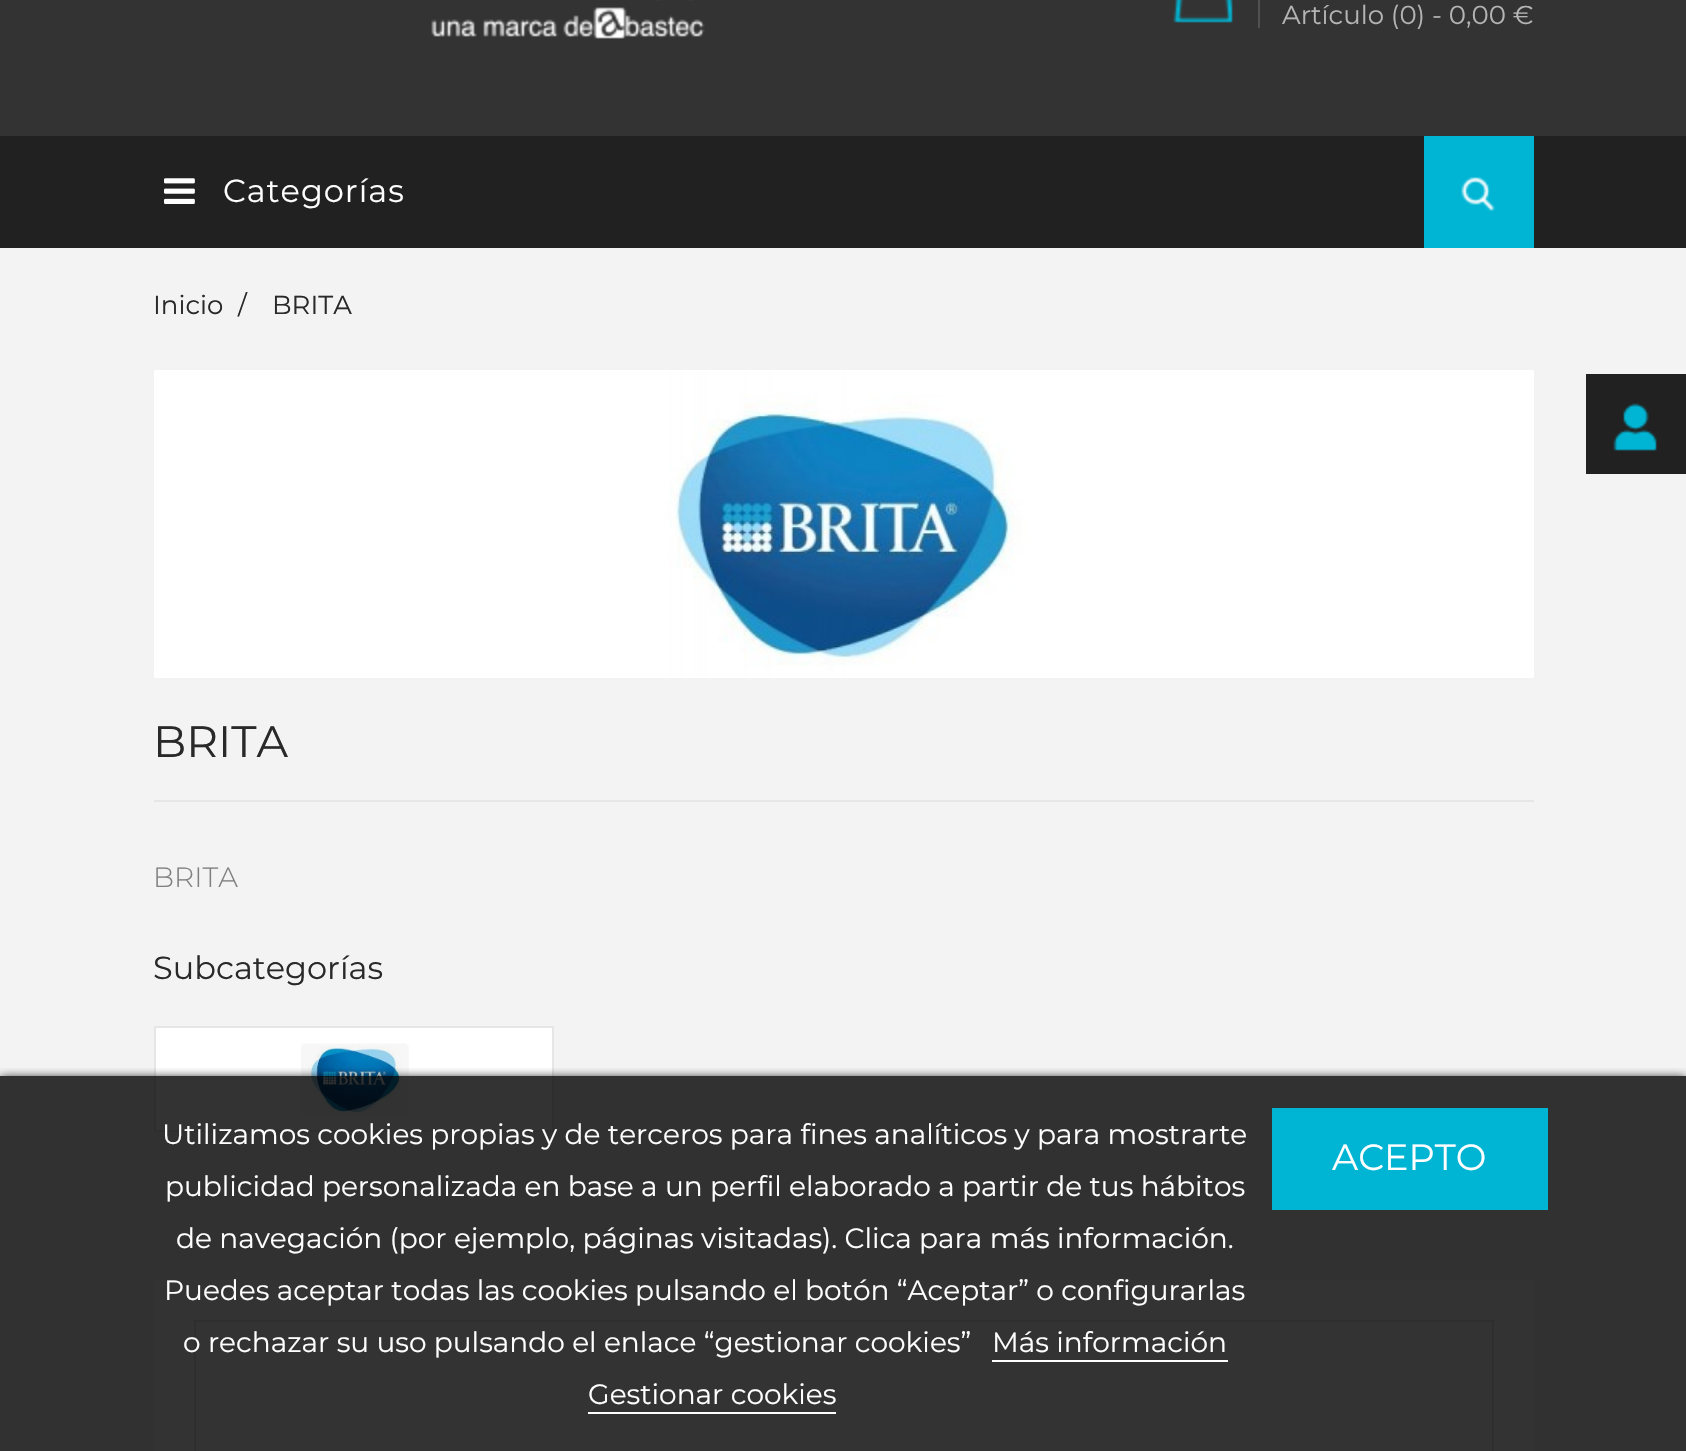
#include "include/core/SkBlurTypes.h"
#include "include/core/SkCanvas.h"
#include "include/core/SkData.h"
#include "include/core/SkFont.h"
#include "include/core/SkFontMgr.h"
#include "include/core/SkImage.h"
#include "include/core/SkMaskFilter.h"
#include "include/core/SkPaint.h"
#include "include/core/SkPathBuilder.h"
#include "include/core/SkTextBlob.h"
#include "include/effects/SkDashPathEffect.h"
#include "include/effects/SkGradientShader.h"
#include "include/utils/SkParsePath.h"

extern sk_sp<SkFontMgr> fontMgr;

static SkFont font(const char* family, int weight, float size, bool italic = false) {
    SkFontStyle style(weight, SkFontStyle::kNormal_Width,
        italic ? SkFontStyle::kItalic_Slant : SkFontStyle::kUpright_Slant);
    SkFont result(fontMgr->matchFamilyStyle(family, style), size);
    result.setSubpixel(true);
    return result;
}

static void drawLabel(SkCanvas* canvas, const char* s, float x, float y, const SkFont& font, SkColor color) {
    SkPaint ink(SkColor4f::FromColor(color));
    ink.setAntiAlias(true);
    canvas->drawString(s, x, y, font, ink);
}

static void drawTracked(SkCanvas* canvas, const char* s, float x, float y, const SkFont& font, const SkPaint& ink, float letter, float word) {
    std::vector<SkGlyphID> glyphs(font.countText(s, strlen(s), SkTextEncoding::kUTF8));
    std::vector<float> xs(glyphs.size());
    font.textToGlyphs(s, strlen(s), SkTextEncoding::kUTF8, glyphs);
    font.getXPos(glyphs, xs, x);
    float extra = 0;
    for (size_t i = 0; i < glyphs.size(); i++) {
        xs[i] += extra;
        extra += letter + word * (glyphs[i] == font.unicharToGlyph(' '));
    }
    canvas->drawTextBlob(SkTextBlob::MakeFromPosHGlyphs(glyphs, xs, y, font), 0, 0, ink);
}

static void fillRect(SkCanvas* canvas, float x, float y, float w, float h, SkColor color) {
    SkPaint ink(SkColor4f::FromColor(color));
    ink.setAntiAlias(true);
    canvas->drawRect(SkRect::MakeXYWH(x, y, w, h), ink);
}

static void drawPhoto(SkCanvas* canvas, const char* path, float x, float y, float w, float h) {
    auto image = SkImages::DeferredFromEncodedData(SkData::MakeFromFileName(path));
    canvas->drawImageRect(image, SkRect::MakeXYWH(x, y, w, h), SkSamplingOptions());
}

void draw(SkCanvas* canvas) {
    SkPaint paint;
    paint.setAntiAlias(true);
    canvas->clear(0xFFF3F3F3);
    fillRect(canvas, 0, 0, 1686, 136, 0xFF333333);
    drawPhoto(canvas, "assets/img1.png", 431, 0, 274, 39);
    drawPhoto(canvas, "assets/img2.png", 1173, 0, 60, 23);
    fillRect(canvas, 1258, 0, 2, 28, 0xFF515151);
    SkFont font1 = font("Montserrat", 400, 26);
    drawLabel(canvas, "Artículo (0) - 0,00 €", 1282, 24, font1, 0xFFB4B4B4);
    fillRect(canvas, 0, 136, 1686, 112, 0xFF212121);
    fillRect(canvas, 1424, 136, 110, 112, 0xFF00B5D4);
    drawPhoto(canvas, "assets/img3.png", 1461, 177, 34, 34);
    paint.setColor(0xFFFFFFFF);
    canvas->drawRect(SkRect::MakeXYWH(155, 1027, 398, 104), paint);
    paint.setStroke(true);
    paint.setStrokeWidth(2);
    paint.setColor(0xFFE6E6E6);
    canvas->drawRect(SkRect::MakeXYWH(155, 1027, 398, 104), paint);
    drawPhoto(canvas, "assets/img7.png", 301, 1043, 108, 74);
    fillRect(canvas, 154, 1280, 1380, 171, 0xFFFFFFFF);
    canvas->drawRect(SkRect::MakeXYWH(195, 1321, 1298, 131), paint);
    canvas->save();
    canvas->clipRect(SkRect::MakeXYWH(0, 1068, 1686, 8));
    paint.setStroke(false);
    paint.setColor(0xFF000000);
    paint.setMaskFilter(SkMaskFilter::MakeBlur(kNormal_SkBlurStyle, 5));
    canvas->drawRect(SkRect::MakeXYWH(0, 1078, 1686, 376), paint);
    paint.setMaskFilter(nullptr);
    canvas->restore();
    fillRect(canvas, 0, 1076, 1686, 375, 0xCC000000);
    SkFont font2 = font("Montserrat", 400, 28);
    drawLabel(canvas, "Utilizamos cookies propias y de terceros para fines analíticos y para mostrarte", 162, 1144, font2, 0xFFFFFFFF);
    drawLabel(canvas, "publicidad personalizada en base a un perfil elaborado a partir de tus hábitos", 165, 1196, font2, 0xFFFFFFFF);
    drawLabel(canvas, "de navegación (por ejemplo, páginas visitadas). Clica para más información.", 176, 1248, font2, 0xFFFFFFFF);
    drawLabel(canvas, "Puedes aceptar todas las cookies pulsando el botón “Aceptar” o configurarlas", 164, 1300, font2, 0xFFFFFFFF);
    drawLabel(canvas, "o rechazar su uso pulsando el enlace “gestionar cookies”", 183, 1352, font2, 0xFFFFFFFF);
    drawLabel(canvas, "Más información", 992, 1352, font2, 0xFFFFFFFF);
    fillRect(canvas, 992, 1360, 236, 2, 0xFFFFFFFF);
    drawLabel(canvas, "Gestionar cookies", 588, 1404, font2, 0xFFFFFFFF);
    fillRect(canvas, 588, 1412, 248, 2, 0xFFFFFFFF);
    fillRect(canvas, 1272, 1108, 276, 102, 0xFF00B5D4);
    SkFont font3 = font("Montserrat", 400, 36.5f);
    drawLabel(canvas, "ACEPTO", 1332, 1170, font3, 0xFFFFFFFF);
    drawPhoto(canvas, "assets/img4.png", 164, 178, 31, 26);
    SkFont font4 = font("Montserrat", 400, 32);
    paint.setColor(0xFFFFFFFF);
    drawTracked(canvas, "Categorías", 223, 202, font4, paint, 1, 0);
    fillRect(canvas, 1586, 374, 100, 100, 0xFF212121);
    drawPhoto(canvas, "assets/img5.png", 1613, 403, 44, 48);
    drawLabel(canvas, "Inicio", 153, 314, font1, 0xFF292929);
    drawLabel(canvas, "/", 238, 314, font1, 0xFF292929);
    drawLabel(canvas, "BRITA", 272, 314, font1, 0xFF292929);
    drawPhoto(canvas, "assets/img6.png", 154, 370, 1380, 308);
    fillRect(canvas, 154, 800, 1380, 2, 0xFFE6E6E6);
    SkFont font5 = font("Montserrat", 400, 44);
    drawLabel(canvas, "BRITA", 153, 757, font5, 0xFF292929);
    SkFont font6 = font("Montserrat", 300, 28);
    drawLabel(canvas, "BRITA", 153, 887, font6, 0xFF808080);
    drawLabel(canvas, "Subcategorías", 153, 979, font4, 0xFF292929);
}
